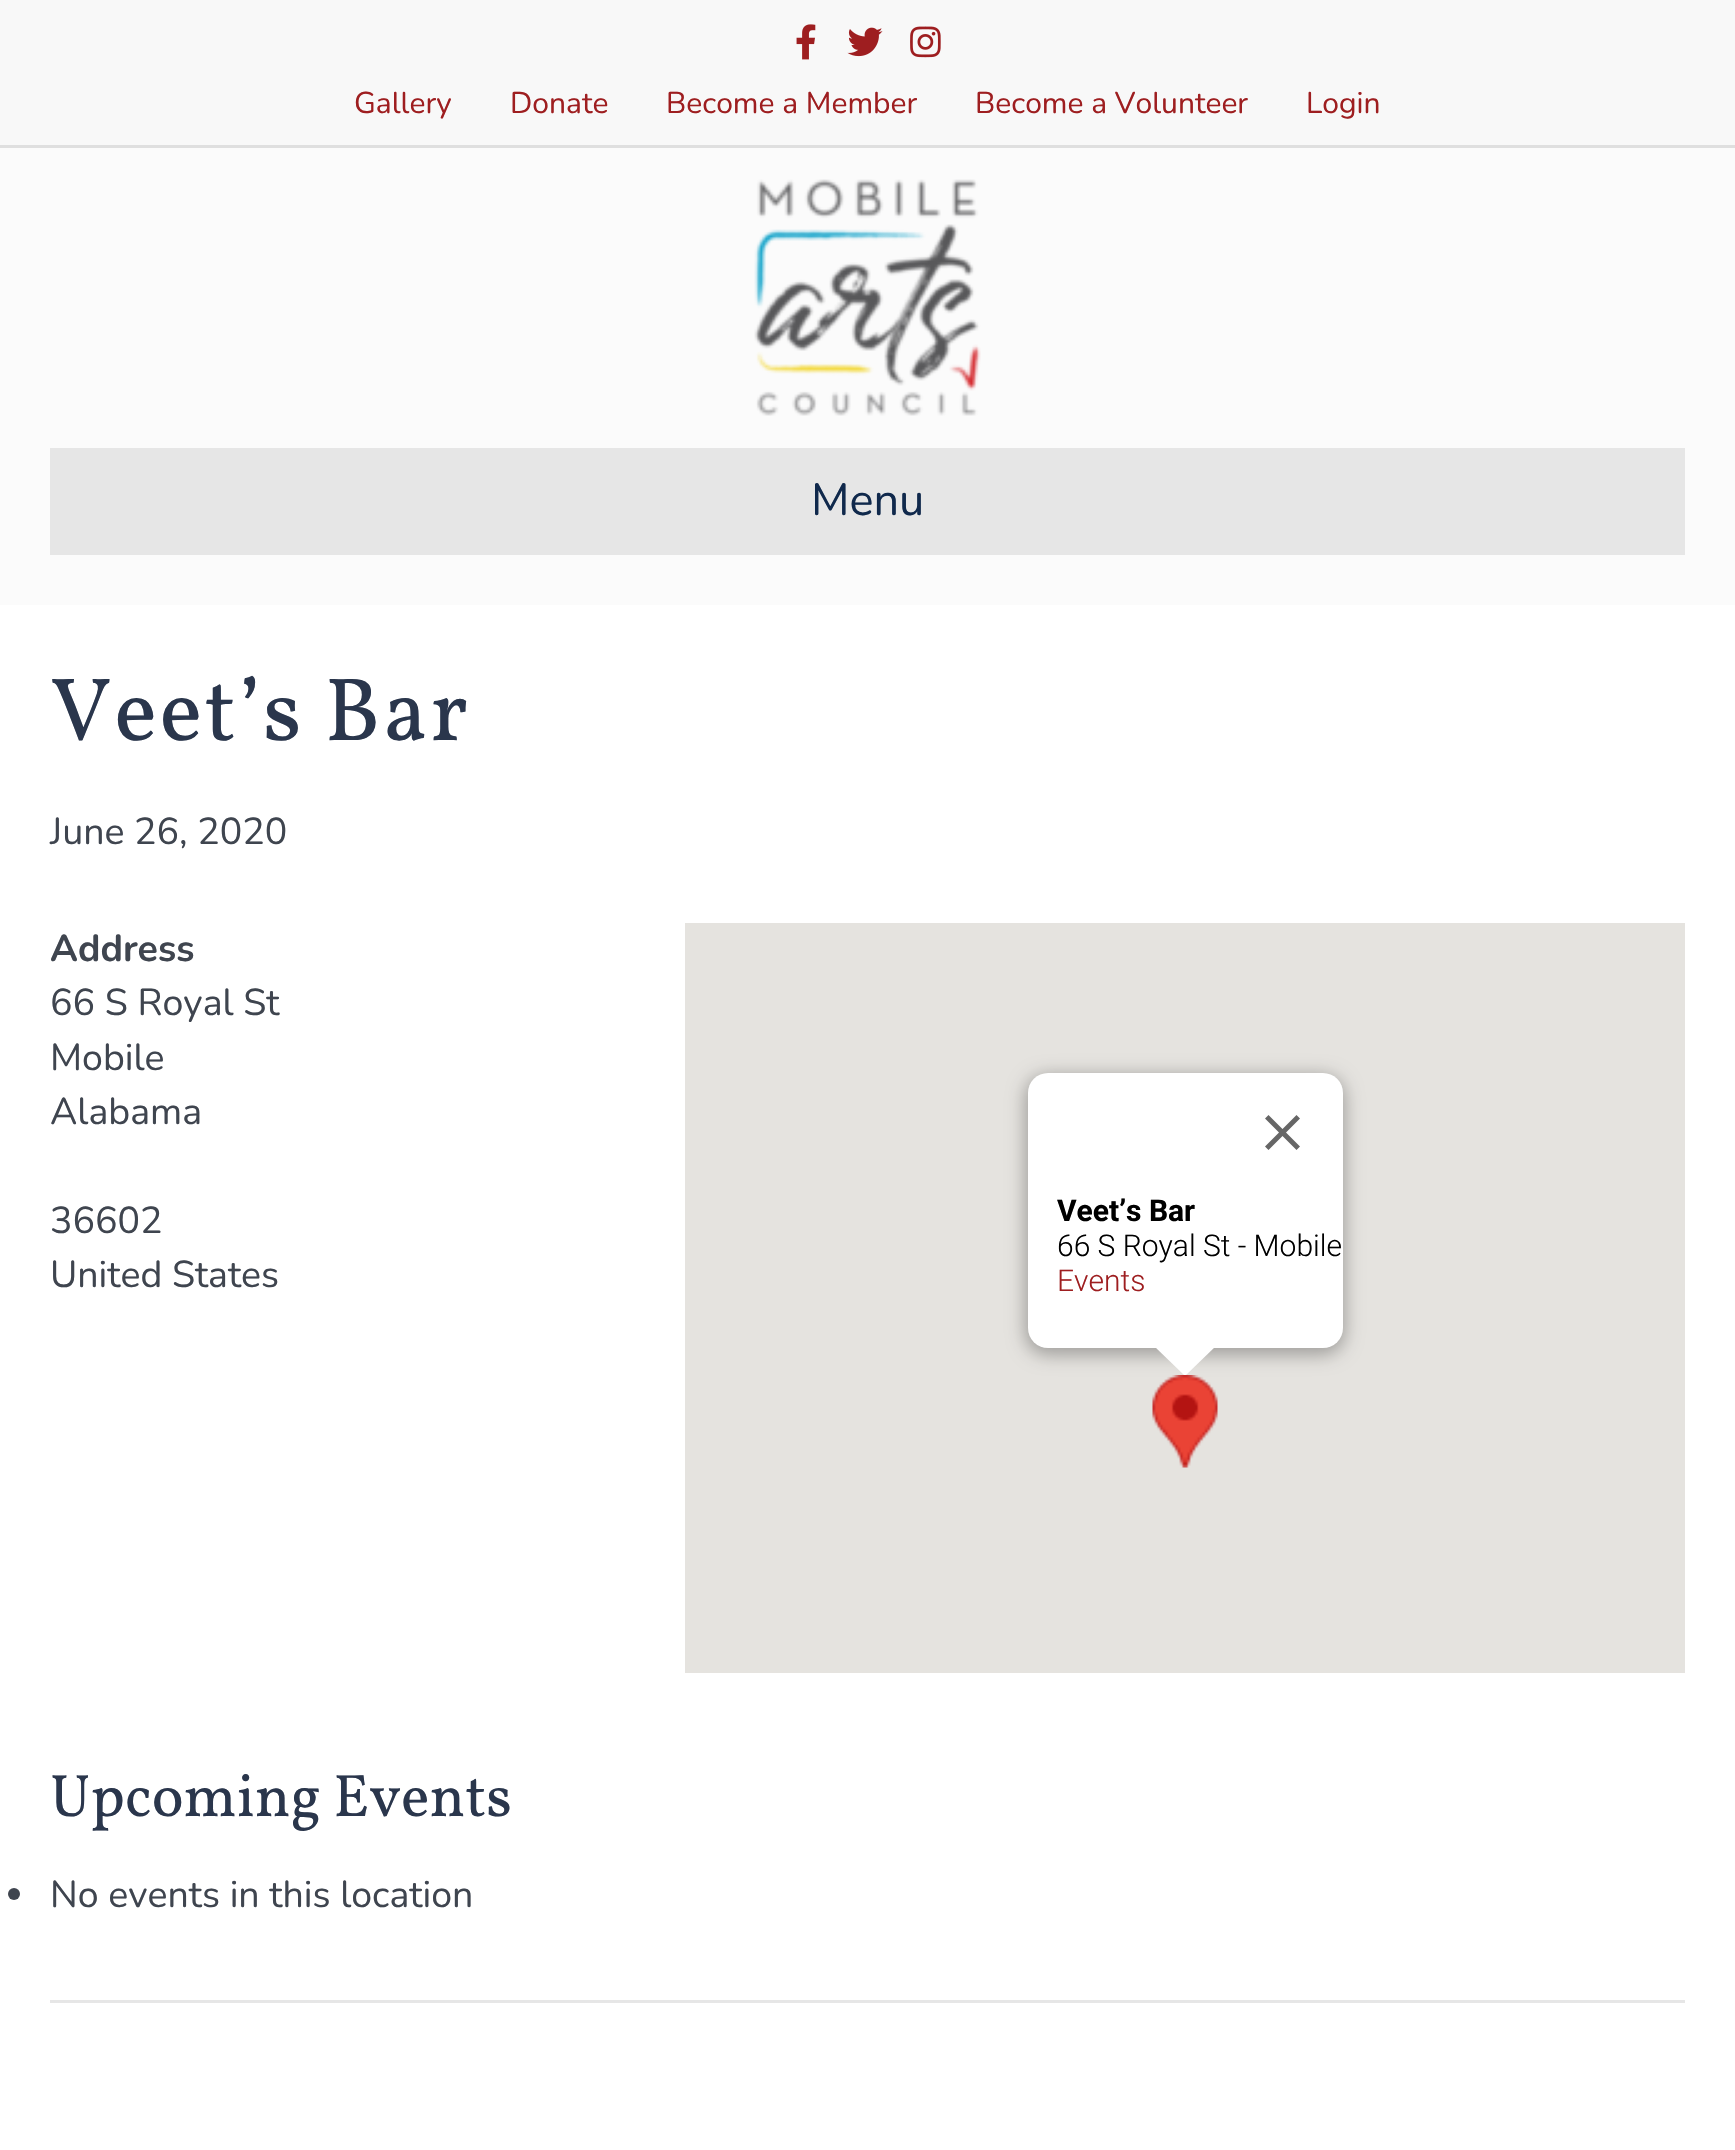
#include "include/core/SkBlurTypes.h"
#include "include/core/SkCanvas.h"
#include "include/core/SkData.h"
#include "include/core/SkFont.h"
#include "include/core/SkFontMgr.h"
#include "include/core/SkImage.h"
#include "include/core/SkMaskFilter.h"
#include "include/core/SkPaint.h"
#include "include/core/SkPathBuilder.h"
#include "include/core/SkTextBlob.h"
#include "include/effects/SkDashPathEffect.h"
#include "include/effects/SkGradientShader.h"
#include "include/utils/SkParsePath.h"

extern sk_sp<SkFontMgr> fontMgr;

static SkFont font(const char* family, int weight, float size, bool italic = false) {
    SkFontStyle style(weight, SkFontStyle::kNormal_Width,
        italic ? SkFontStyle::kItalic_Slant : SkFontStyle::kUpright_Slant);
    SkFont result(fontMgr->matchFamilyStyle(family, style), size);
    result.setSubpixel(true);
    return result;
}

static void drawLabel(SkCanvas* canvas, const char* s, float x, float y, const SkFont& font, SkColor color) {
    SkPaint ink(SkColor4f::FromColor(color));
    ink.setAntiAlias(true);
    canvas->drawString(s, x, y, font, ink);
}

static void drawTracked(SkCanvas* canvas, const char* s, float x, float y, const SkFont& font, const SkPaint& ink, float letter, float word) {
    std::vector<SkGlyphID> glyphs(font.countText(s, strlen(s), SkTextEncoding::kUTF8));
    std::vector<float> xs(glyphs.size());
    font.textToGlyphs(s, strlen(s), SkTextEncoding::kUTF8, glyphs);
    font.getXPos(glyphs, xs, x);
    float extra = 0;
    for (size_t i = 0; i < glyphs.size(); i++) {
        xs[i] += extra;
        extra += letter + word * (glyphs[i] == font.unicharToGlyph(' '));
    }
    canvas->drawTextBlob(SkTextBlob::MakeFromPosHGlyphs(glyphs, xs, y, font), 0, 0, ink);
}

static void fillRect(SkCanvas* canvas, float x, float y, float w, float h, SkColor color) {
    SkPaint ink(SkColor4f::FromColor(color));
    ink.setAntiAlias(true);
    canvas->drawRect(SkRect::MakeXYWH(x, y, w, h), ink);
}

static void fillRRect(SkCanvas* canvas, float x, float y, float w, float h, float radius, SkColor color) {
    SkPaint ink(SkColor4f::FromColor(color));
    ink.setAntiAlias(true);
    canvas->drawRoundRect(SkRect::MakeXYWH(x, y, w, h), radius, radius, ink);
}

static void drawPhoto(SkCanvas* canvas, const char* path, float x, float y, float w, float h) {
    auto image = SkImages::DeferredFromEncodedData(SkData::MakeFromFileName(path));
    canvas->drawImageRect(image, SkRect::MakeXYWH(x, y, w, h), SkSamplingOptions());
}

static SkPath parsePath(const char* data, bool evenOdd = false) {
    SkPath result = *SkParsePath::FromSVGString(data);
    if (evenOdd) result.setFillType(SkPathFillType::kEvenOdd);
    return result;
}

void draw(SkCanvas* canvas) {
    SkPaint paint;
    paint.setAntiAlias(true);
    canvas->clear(0xFFF8F8F8);
    fillRect(canvas, 0, 145, 1735, 3, 0xFFDFDFDF);
    drawPhoto(canvas, "assets/img1.png", 796, 24, 20, 36);
    drawPhoto(canvas, "assets/img2.png", 847, 27, 36, 30);
    drawPhoto(canvas, "assets/img3.png", 910, 26, 31, 32);
    SkFont font1 = font("Nunito", 400, 30);
    drawLabel(canvas, "Gallery", 354, 113, font1, 0xFF9E1E20);
    drawLabel(canvas, "Donate", 510, 113, font1, 0xFF9E1E20);
    drawLabel(canvas, "Become a Member", 666, 113, font1, 0xFF9E1E20);
    drawLabel(canvas, "Become a Volunteer", 975, 113, font1, 0xFF9E1E20);
    drawLabel(canvas, "Login", 1306, 113, font1, 0xFF9E1E20);
    fillRect(canvas, 0, 148, 1735, 457, 0xFFFBFBFB);
    drawPhoto(canvas, "assets/img4.png", 754, 179, 227, 237);
    fillRect(canvas, 50, 448, 1635, 107, 0xFFE6E6E6);
    SkFont font2 = font("Nunito", 400, 45);
    drawLabel(canvas, "Menu", 811, 515, font2, 0xFF10294C);
    fillRect(canvas, 0, 605, 1735, 1545, 0xFFFFFFFF);
    SkFont font3 = font("Vollkorn", 400, 90);
    paint.setColor(0xFF2A364C);
    drawTracked(canvas, "Veet’s Bar", 50, 740, font3, paint, 2.5f, 0);
    SkFont font4 = font("Nunito", 400, 37.5f);
    drawLabel(canvas, "June 26, 2020", 50, 844, font4, 0xFF3F454F);
    SkFont font5 = font("Nunito", 700, 37.5f);
    drawLabel(canvas, "Address", 50, 961, font5, 0xFF3F454F);
    drawLabel(canvas, "66 S Royal St", 50, 1015, font4, 0xFF3F454F);
    drawLabel(canvas, "Mobile", 50, 1070, font4, 0xFF3F454F);
    drawLabel(canvas, "Alabama", 50, 1124, font4, 0xFF3F454F);
    drawLabel(canvas, "36602", 50, 1233, font4, 0xFF3F454F);
    drawLabel(canvas, "United States", 50, 1287, font4, 0xFF3F454F);
    fillRect(canvas, 685, 923, 1000, 750, 0xFFE5E3DF);
    drawPhoto(canvas, "assets/img5.png", 1152, 1375, 66, 93);
    paint.setColor(0x4D000000);
    paint.setMaskFilter(SkMaskFilter::MakeBlur(kNormal_SkBlurStyle, 9));
    canvas->drawRoundRect(SkRect::MakeXYWH(1025, 1075, 320, 280), 23, 23, paint);
    paint.setMaskFilter(nullptr);
    fillRRect(canvas, 1028, 1073, 315, 275, 20, 0xFFFFFFFF);
    paint.setColor(0xFF666666);
    canvas->drawPath(parsePath("M1300 1118.5L1296.5 1115L1282.5 1129L1268.5 1115L1265 1118.5L1279 1132.5L1265 1146.5L1268.5 1150L1282.5 1136L1296.5 1150L1300 1146.5L1286 1132.5Z"), paint);
    SkFont font6 = font("Roboto", 700, 30);
    drawLabel(canvas, "Veet’s Bar", 1057, 1221, font6, 0xFF000000);
    SkFont font7 = font("Roboto", 300, 30);
    drawLabel(canvas, "66 S Royal St - Mobile", 1057, 1256, font7, 0xFF000000);
    drawLabel(canvas, "Events", 1057, 1291, font7, 0xFF9E1E20);
    paint.setColor(0xFFFFFFFF);
    canvas->drawPath(parsePath("M1155 1347V1346H1216L1186 1375H1184Z"), paint);
    SkFont font8 = font("Vollkorn", 400, 60);
    drawLabel(canvas, "Upcoming Events", 50, 1816, font8, 0xFF2A364C);
    paint.setColor(0xFF3F454F);
    canvas->drawCircle(14, 1894, 6, paint);
    drawLabel(canvas, "No events in this location", 50, 1907, font4, 0xFF3F454F);
    fillRect(canvas, 50, 2000, 1635, 3, 0xFFE6E6E6);
}
